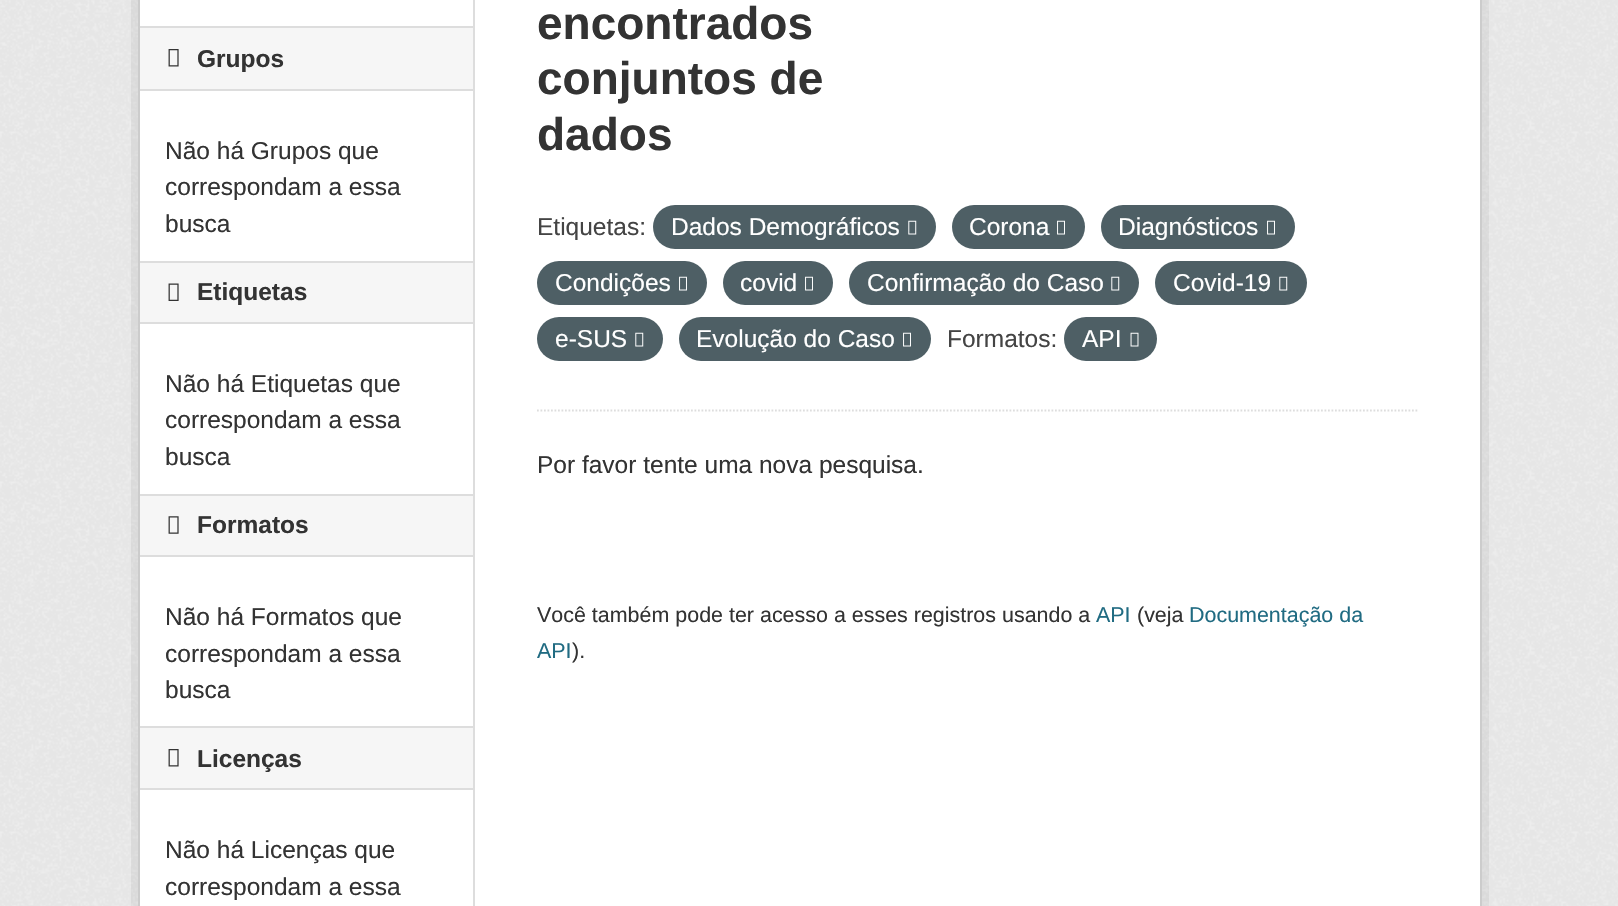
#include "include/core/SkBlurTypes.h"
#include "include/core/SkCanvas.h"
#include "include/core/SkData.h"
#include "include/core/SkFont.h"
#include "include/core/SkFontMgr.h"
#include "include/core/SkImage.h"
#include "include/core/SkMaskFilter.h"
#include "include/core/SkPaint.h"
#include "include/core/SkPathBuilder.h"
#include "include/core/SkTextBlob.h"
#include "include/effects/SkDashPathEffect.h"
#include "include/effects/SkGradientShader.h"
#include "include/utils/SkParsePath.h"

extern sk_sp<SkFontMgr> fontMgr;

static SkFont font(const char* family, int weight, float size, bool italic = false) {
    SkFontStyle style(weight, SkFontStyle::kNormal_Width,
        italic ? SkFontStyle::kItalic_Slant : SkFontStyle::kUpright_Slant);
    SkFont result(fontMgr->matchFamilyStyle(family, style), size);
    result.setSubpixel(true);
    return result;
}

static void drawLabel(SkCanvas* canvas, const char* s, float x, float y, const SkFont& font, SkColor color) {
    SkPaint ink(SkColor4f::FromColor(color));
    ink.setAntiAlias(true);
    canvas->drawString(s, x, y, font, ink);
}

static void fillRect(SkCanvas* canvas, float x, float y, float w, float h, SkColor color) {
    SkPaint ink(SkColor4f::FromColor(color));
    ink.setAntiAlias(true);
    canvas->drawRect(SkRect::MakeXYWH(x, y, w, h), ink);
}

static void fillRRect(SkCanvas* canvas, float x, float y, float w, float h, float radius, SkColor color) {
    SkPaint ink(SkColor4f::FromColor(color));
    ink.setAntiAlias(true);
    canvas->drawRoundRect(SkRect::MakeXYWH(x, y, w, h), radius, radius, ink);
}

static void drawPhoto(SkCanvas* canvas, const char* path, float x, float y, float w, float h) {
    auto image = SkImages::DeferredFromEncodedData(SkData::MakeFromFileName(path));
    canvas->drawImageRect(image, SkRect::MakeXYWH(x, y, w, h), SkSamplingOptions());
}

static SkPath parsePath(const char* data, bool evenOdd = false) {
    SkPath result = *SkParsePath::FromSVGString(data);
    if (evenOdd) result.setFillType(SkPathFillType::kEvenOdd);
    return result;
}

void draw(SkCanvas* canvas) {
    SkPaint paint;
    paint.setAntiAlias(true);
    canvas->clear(0xFFEEEEEE);
    drawPhoto(canvas, "assets/img1.png", 0, 0, 1618, 906);
    paint.setStroke(true);
    paint.setStrokeWidth(7);
    paint.setColor(0x0D000000);
    canvas->drawRect(SkRect::MakeXYWH(134.5f, -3.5f, 1351, 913), paint);
    paint.setStroke(false);
    paint.setColor(0xFFFFFFFF);
    canvas->drawRect(SkRect::MakeXYWH(139, -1, 1342, 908), paint);
    paint.setStroke(true);
    paint.setStrokeWidth(2);
    paint.setColor(0xFFCCCCCC);
    canvas->drawRect(SkRect::MakeXYWH(139, -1, 1342, 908), paint);
    fillRect(canvas, 140, 28, 333, 61, 0xFFF6F6F6);
    fillRect(canvas, 140, 26, 333, 2, 0xFFDDDDDD);
    fillRect(canvas, 140, 89, 333, 2, 0xFFDDDDDD);
    drawPhoto(canvas, "assets/img2.png", 168, 49, 11, 18);
    SkFont font1 = font("Liberation Sans", 700, 24.5f);
    drawLabel(canvas, "Grupos", 197, 67, font1, 0xFF333333);
    SkFont font2 = font("Liberation Sans", 400, 24.5f);
    drawLabel(canvas, "Não há Grupos que", 165, 159, font2, 0xFF333333);
    drawLabel(canvas, "correspondam a essa", 165, 195, font2, 0xFF333333);
    drawLabel(canvas, "busca", 165, 232, font2, 0xFF333333);
    fillRect(canvas, 140, 263, 333, 59, 0xFFF6F6F6);
    fillRect(canvas, 140, 261, 333, 2, 0xFFDDDDDD);
    fillRect(canvas, 140, 322, 333, 2, 0xFFDDDDDD);
    drawPhoto(canvas, "assets/img3.png", 168, 283, 11, 18);
    drawLabel(canvas, "Etiquetas", 197, 300, font1, 0xFF333333);
    drawLabel(canvas, "Não há Etiquetas que", 165, 392, font2, 0xFF333333);
    drawLabel(canvas, "correspondam a essa", 165, 428, font2, 0xFF333333);
    drawLabel(canvas, "busca", 165, 465, font2, 0xFF333333);
    fillRect(canvas, 140, 496, 333, 59, 0xFFF6F6F6);
    fillRect(canvas, 140, 494, 333, 2, 0xFFDDDDDD);
    fillRect(canvas, 140, 555, 333, 2, 0xFFDDDDDD);
    drawPhoto(canvas, "assets/img4.png", 168, 516, 11, 18);
    drawLabel(canvas, "Formatos", 197, 533, font1, 0xFF333333);
    drawLabel(canvas, "Não há Formatos que", 165, 625, font2, 0xFF333333);
    drawLabel(canvas, "correspondam a essa", 165, 662, font2, 0xFF333333);
    drawLabel(canvas, "busca", 165, 698, font2, 0xFF333333);
    fillRect(canvas, 140, 728, 333, 60, 0xFFF6F6F6);
    fillRect(canvas, 140, 726, 333, 2, 0xFFDDDDDD);
    fillRect(canvas, 140, 788, 333, 2, 0xFFDDDDDD);
    drawPhoto(canvas, "assets/img2.png", 168, 749, 11, 18);
    drawLabel(canvas, "Licenças", 197, 767, font1, 0xFF333333);
    drawLabel(canvas, "Não há Licenças que", 165, 858, font2, 0xFF333333);
    drawLabel(canvas, "correspondam a essa", 165, 895, font2, 0xFF333333);
    fillRect(canvas, 473, 0, 2, 906, 0xFFDDDDDD);
    paint.setStrokeWidth(1.8f);
    paint.setColor(0xFFDDDDDD);
    paint.setPathEffect(SkDashPathEffect::Make({{1.75f, 1.75f}}, 0));
    canvas->drawPath(parsePath("M537 410.5H1417.5"), paint);
    paint.setPathEffect(nullptr);
    SkFont font3 = font("Liberation Sans", 700, 46);
    drawLabel(canvas, "encontrados", 537, 39, font3, 0xFF333333);
    drawLabel(canvas, "conjuntos de", 537, 94, font3, 0xFF333333);
    drawLabel(canvas, "dados", 537, 150, font3, 0xFF333333);
    drawLabel(canvas, "Etiquetas:", 537, 235, font2, 0xFF444444);
    fillRRect(canvas, 653, 205, 283, 44, 22, 0xFF4E5F65);
    drawLabel(canvas, "Dados Demográficos", 671, 235, font2, 0xFFFFFFFF);
    drawPhoto(canvas, "assets/img5.png", 908, 220, 9, 15);
    fillRRect(canvas, 952, 205, 133, 44, 22, 0xFF4E5F65);
    drawLabel(canvas, "Corona", 969, 235, font2, 0xFFFFFFFF);
    drawPhoto(canvas, "assets/img6.png", 1057, 220, 8, 15);
    fillRRect(canvas, 1101, 205, 194, 44, 22, 0xFF4E5F65);
    drawLabel(canvas, "Diagnósticos", 1118, 235, font2, 0xFFFFFFFF);
    drawPhoto(canvas, "assets/img6.png", 1267, 220, 8, 15);
    fillRRect(canvas, 537, 261, 170, 44, 22, 0xFF4E5F65);
    drawLabel(canvas, "Condições", 555, 291, font2, 0xFFFFFFFF);
    drawPhoto(canvas, "assets/img6.png", 679, 276, 8, 15);
    fillRRect(canvas, 723, 261, 110, 44, 22, 0xFF4E5F65);
    drawLabel(canvas, "covid", 740, 291, font2, 0xFFFFFFFF);
    drawPhoto(canvas, "assets/img6.png", 805, 276, 8, 15);
    fillRRect(canvas, 849, 261, 290, 44, 22, 0xFF4E5F65);
    drawLabel(canvas, "Confirmação do Caso", 867, 291, font2, 0xFFFFFFFF);
    drawPhoto(canvas, "assets/img5.png", 1111, 276, 9, 15);
    fillRRect(canvas, 1155, 261, 152, 44, 22, 0xFF4E5F65);
    drawLabel(canvas, "Covid-19", 1173, 291, font2, 0xFFFFFFFF);
    drawPhoto(canvas, "assets/img5.png", 1279, 276, 9, 15);
    fillRRect(canvas, 537, 317, 126, 44, 22, 0xFF4E5F65);
    drawLabel(canvas, "e-SUS", 555, 347, font2, 0xFFFFFFFF);
    drawPhoto(canvas, "assets/img5.png", 635, 332, 9, 15);
    fillRRect(canvas, 679, 317, 252, 44, 22, 0xFF4E5F65);
    drawLabel(canvas, "Evolução do Caso", 696, 347, font2, 0xFFFFFFFF);
    drawPhoto(canvas, "assets/img6.png", 903, 332, 8, 15);
    drawLabel(canvas, "Formatos:", 947, 347, font2, 0xFF444444);
    fillRRect(canvas, 1064, 317, 93, 44, 22, 0xFF4E5F65);
    drawLabel(canvas, "API", 1082, 347, font2, 0xFFFFFFFF);
    drawPhoto(canvas, "assets/img7.png", 1130, 332, 9, 15);
    drawLabel(canvas, "Por favor tente uma nova pesquisa.", 537, 473, font2, 0xFF333333);
    SkFont font4 = font("Liberation Sans", 400, 21.45f);
    drawLabel(canvas, "Você também pode ter acesso a esses registros usando a", 537, 622, font4, 0xFF333333);
    drawLabel(canvas, "API", 1096, 622, font4, 0xFF206B82);
    drawLabel(canvas, "(veja", 1137, 622, font4, 0xFF333333);
    drawLabel(canvas, "Documentação da", 1189, 622, font4, 0xFF206B82);
    drawLabel(canvas, "API", 537, 658, font4, 0xFF206B82);
    drawLabel(canvas, ").", 572, 658, font4, 0xFF333333);
}
